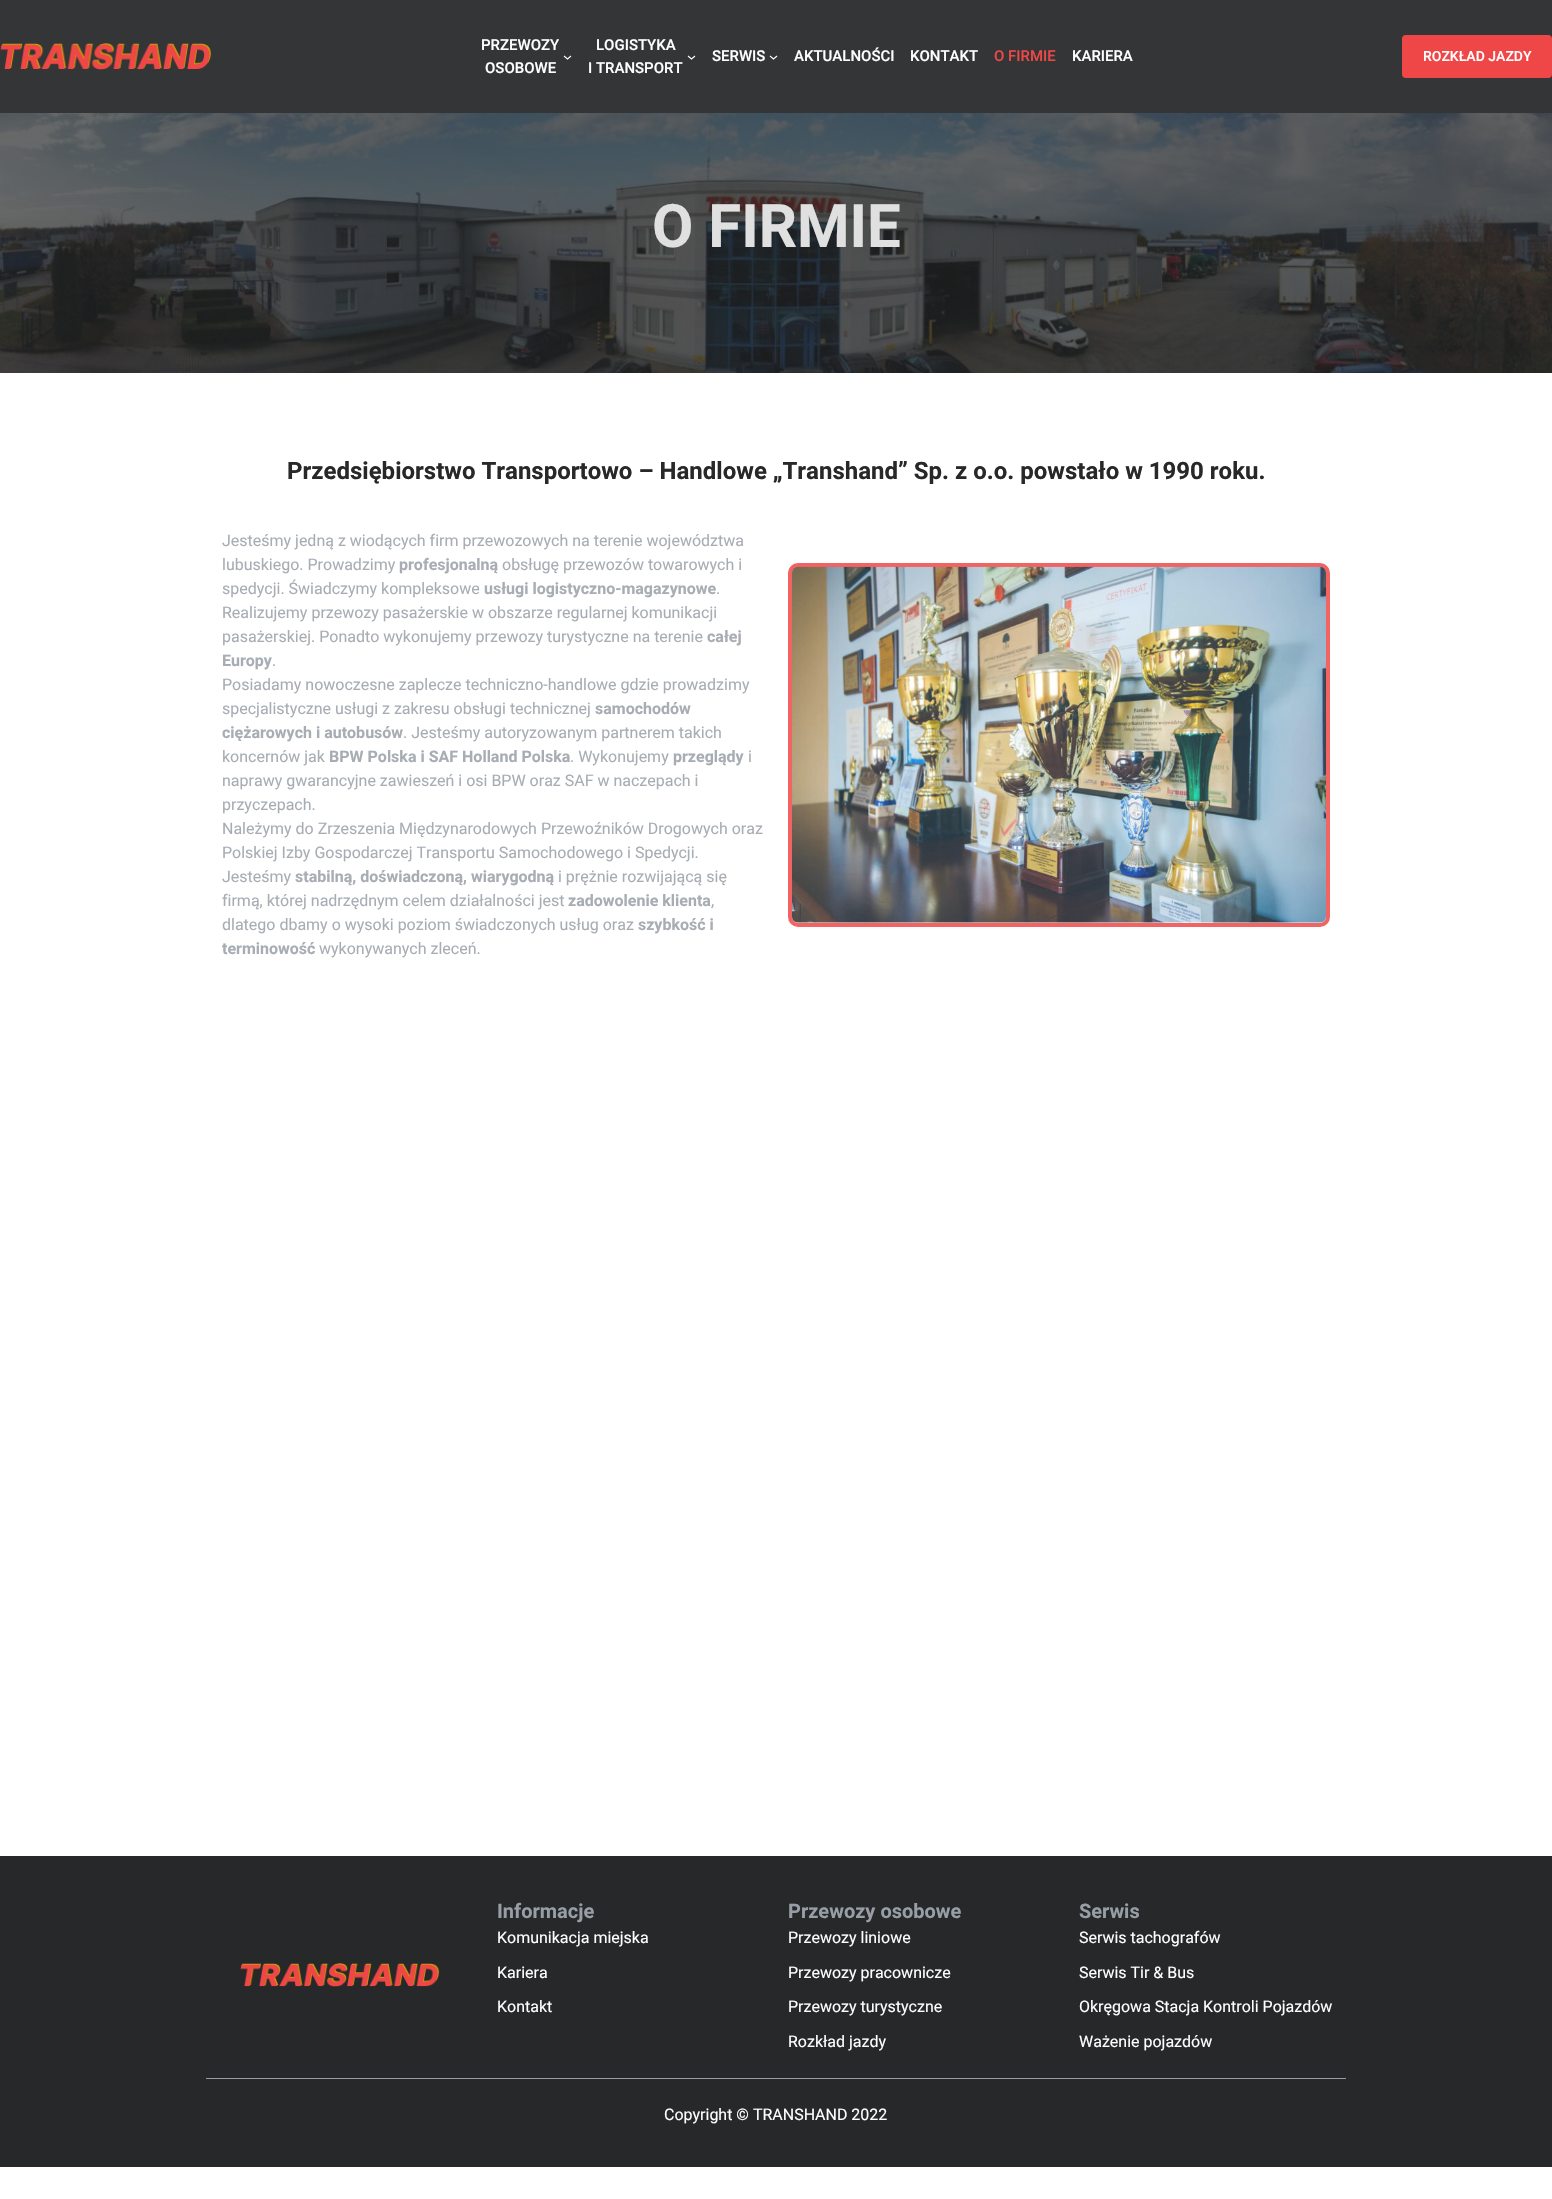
#include "include/core/SkBlurTypes.h"
#include "include/core/SkCanvas.h"
#include "include/core/SkData.h"
#include "include/core/SkFont.h"
#include "include/core/SkFontMgr.h"
#include "include/core/SkImage.h"
#include "include/core/SkMaskFilter.h"
#include "include/core/SkPaint.h"
#include "include/core/SkPathBuilder.h"
#include "include/core/SkTextBlob.h"
#include "include/effects/SkDashPathEffect.h"
#include "include/effects/SkGradientShader.h"
#include "include/utils/SkParsePath.h"

extern sk_sp<SkFontMgr> fontMgr;

static SkFont font(const char* family, int weight, float size, bool italic = false) {
    SkFontStyle style(weight, SkFontStyle::kNormal_Width,
        italic ? SkFontStyle::kItalic_Slant : SkFontStyle::kUpright_Slant);
    SkFont result(fontMgr->matchFamilyStyle(family, style), size);
    result.setSubpixel(true);
    return result;
}

static void drawLabel(SkCanvas* canvas, const char* s, float x, float y, const SkFont& font, SkColor color) {
    SkPaint ink(SkColor4f::FromColor(color));
    ink.setAntiAlias(true);
    canvas->drawString(s, x, y, font, ink);
}

static void fillRect(SkCanvas* canvas, float x, float y, float w, float h, SkColor color) {
    SkPaint ink(SkColor4f::FromColor(color));
    ink.setAntiAlias(true);
    canvas->drawRect(SkRect::MakeXYWH(x, y, w, h), ink);
}

static void fillRRect(SkCanvas* canvas, float x, float y, float w, float h, float radius, SkColor color) {
    SkPaint ink(SkColor4f::FromColor(color));
    ink.setAntiAlias(true);
    canvas->drawRoundRect(SkRect::MakeXYWH(x, y, w, h), radius, radius, ink);
}

static void drawPhoto(SkCanvas* canvas, const char* path, float x, float y, float w, float h) {
    auto image = SkImages::DeferredFromEncodedData(SkData::MakeFromFileName(path));
    canvas->drawImageRect(image, SkRect::MakeXYWH(x, y, w, h), SkSamplingOptions());
}

static SkPath parsePath(const char* data, bool evenOdd = false) {
    SkPath result = *SkParsePath::FromSVGString(data);
    if (evenOdd) result.setFillType(SkPathFillType::kEvenOdd);
    return result;
}

void draw(SkCanvas* canvas) {
    SkPaint paint;
    paint.setAntiAlias(true);
    canvas->clear(0xFFFFFFFF);
    fillRect(canvas, 0, 0, 1552, 113, 0xFF333537);
    drawPhoto(canvas, "assets/img1.png", 0, 43, 211, 27);
    SkFont font1 = font("Roboto", 500, 15);
    drawLabel(canvas, "PRZEWOZY", 481, 50, font1, 0xFFFFFFFF);
    drawLabel(canvas, "OSOBOWE", 485, 73, font1, 0xFFFFFFFF);
    paint.setStroke(true);
    paint.setStrokeWidth(1.1f);
    paint.setColor(0xFFFFFFFF);
    canvas->drawPath(parsePath("M564 56L567.5 59L571 56"), paint);
    drawLabel(canvas, "LOGISTYKA", 596, 50, font1, 0xFFFFFFFF);
    drawLabel(canvas, "I TRANSPORT", 588, 73, font1, 0xFFFFFFFF);
    canvas->drawPath(parsePath("M688 56L691.5 59L695 56"), paint);
    drawLabel(canvas, "SERWIS", 712, 61, font1, 0xFFFFFFFF);
    canvas->drawPath(parsePath("M770 56L773.5 59L777 56"), paint);
    drawLabel(canvas, "AKTUALNOŚCI", 794, 61, font1, 0xFFFFFFFF);
    drawLabel(canvas, "KONTAKT", 910, 61, font1, 0xFFFFFFFF);
    drawLabel(canvas, "O FIRMIE", 994, 61, font1, 0xFFEF4747);
    drawLabel(canvas, "KARIERA", 1072, 61, font1, 0xFFFFFFFF);
    fillRRect(canvas, 1402, 35, 150, 43, 4, 0xFFEF4747);
    SkFont font2 = font("Roboto", 500, 14);
    drawLabel(canvas, "ROZKŁAD JAZDY", 1423, 61, font2, 0xFFFFFFFF);
    drawPhoto(canvas, "assets/img2.png", 0, 113, 1552, 260);
    SkFont font3 = font("Roboto", 700, 60);
    drawLabel(canvas, "O FIRMIE", 652, 247, font3, 0xFFE0E0E1);
    SkFont font4 = font("Roboto", 700, 24);
    drawLabel(canvas, "Przedsiębiorstwo Transportowo – Handlowe „Transhand” Sp. z o.o. powstało w 1990 roku.", 287, 479, font4, 0xFF282828);
    SkFont font5 = font("Roboto", 400, 16);
    drawLabel(canvas, "Jesteśmy jedną z wiodących firm przewozowych na terenie województwa", 222, 546, font5, 0xFFA8ADB4);
    drawLabel(canvas, "lubuskiego. Prowadzimy", 222, 570, font5, 0xFFA8ADB4);
    SkFont font6 = font("Roboto", 700, 16);
    drawLabel(canvas, "profesjonalną", 399, 570, font6, 0xFFA8ADB4);
    drawLabel(canvas, "obsługę przewozów towarowych i", 502, 570, font5, 0xFFA8ADB4);
    drawLabel(canvas, "spedycji. Świadczymy kompleksowe", 222, 594, font5, 0xFFA8ADB4);
    drawLabel(canvas, "usługi logistyczno-magazynowe", 484, 594, font6, 0xFFA8ADB4);
    drawLabel(canvas, ".", 716, 594, font5, 0xFFA8ADB4);
    drawLabel(canvas, "Realizujemy przewozy pasażerskie w obszarze regularnej komunikacji", 222, 618, font5, 0xFFA8ADB4);
    drawLabel(canvas, "pasażerskiej. Ponadto wykonujemy przewozy turystyczne na terenie", 222, 642, font5, 0xFFA8ADB4);
    drawLabel(canvas, "całej", 707, 642, font6, 0xFFA8ADB4);
    drawLabel(canvas, "Europy", 222, 666, font6, 0xFFA8ADB4);
    drawLabel(canvas, ".", 272, 666, font5, 0xFFA8ADB4);
    drawLabel(canvas, "Posiadamy nowoczesne zaplecze techniczno-handlowe gdzie prowadzimy", 222, 690, font5, 0xFFA8ADB4);
    drawLabel(canvas, "specjalistyczne usługi z zakresu obsługi technicznej", 222, 714, font5, 0xFFA8ADB4);
    drawLabel(canvas, "samochodów", 595, 714, font6, 0xFFA8ADB4);
    drawLabel(canvas, "ciężarowych i autobusów", 222, 738, font6, 0xFFA8ADB4);
    drawLabel(canvas, ". Jesteśmy autoryzowanym partnerem takich", 403, 738, font5, 0xFFA8ADB4);
    drawLabel(canvas, "koncernów jak", 222, 762, font5, 0xFFA8ADB4);
    drawLabel(canvas, "BPW Polska i SAF Holland Polska", 329, 762, font6, 0xFFA8ADB4);
    drawLabel(canvas, ". Wykonujemy", 570, 762, font5, 0xFFA8ADB4);
    drawLabel(canvas, "przeglądy", 673, 762, font6, 0xFFA8ADB4);
    drawLabel(canvas, "i", 748, 762, font5, 0xFFA8ADB4);
    drawLabel(canvas, "naprawy gwarancyjne zawieszeń i osi BPW oraz SAF w naczepach i", 222, 786, font5, 0xFFA8ADB4);
    drawLabel(canvas, "przyczepach.", 222, 810, font5, 0xFFA8ADB4);
    drawLabel(canvas, "Należymy do Zrzeszenia Międzynarodowych Przewoźników Drogowych oraz", 222, 834, font5, 0xFFA8ADB4);
    drawLabel(canvas, "Polskiej Izby Gospodarczej Transportu Samochodowego i Spedycji.", 222, 858, font5, 0xFFA8ADB4);
    drawLabel(canvas, "Jesteśmy", 222, 882, font5, 0xFFA8ADB4);
    drawLabel(canvas, "stabilną, doświadczoną, wiarygodną", 295, 882, font6, 0xFFA8ADB4);
    drawLabel(canvas, "i prężnie rozwijającą się", 558, 882, font5, 0xFFA8ADB4);
    drawLabel(canvas, "firmą, której nadrzędnym celem działalności jest", 222, 906, font5, 0xFFA8ADB4);
    drawLabel(canvas, "zadowolenie klienta", 568, 906, font6, 0xFFA8ADB4);
    drawLabel(canvas, ",", 711, 906, font5, 0xFFA8ADB4);
    drawLabel(canvas, "dlatego dbamy o wysoki poziom świadczonych usług oraz", 222, 930, font5, 0xFFA8ADB4);
    drawLabel(canvas, "szybkość i", 638, 930, font6, 0xFFA8ADB4);
    drawLabel(canvas, "terminowość", 222, 954, font6, 0xFFA8ADB4);
    drawLabel(canvas, "wykonywanych zleceń.", 319, 954, font5, 0xFFA8ADB4);
    paint.setStrokeWidth(4);
    paint.setColor(0xFFF26464);
    canvas->drawRoundRect(SkRect::MakeXYWH(790, 565, 538, 360), 8, 8, paint);
    drawPhoto(canvas, "assets/img3.png", 792, 566, 534, 357);
    fillRect(canvas, 0, 1856, 1552, 311, 0xFF262829);
    drawPhoto(canvas, "assets/img4.png", 240, 1963, 200, 24);
    SkFont font7 = font("Roboto", 700, 20);
    drawLabel(canvas, "Informacje", 497, 1918, font7, 0xFF989EA6);
    drawLabel(canvas, "Komunikacja miejska", 497, 1943, font5, 0xFFFFFFFF);
    drawLabel(canvas, "Kariera", 497, 1978, font5, 0xFFFFFFFF);
    drawLabel(canvas, "Kontakt", 497, 2012, font5, 0xFFFFFFFF);
    drawLabel(canvas, "Przewozy osobowe", 788, 1918, font7, 0xFF989EA6);
    drawLabel(canvas, "Przewozy liniowe", 788, 1943, font5, 0xFFFFFFFF);
    drawLabel(canvas, "Przewozy pracownicze", 788, 1978, font5, 0xFFFFFFFF);
    drawLabel(canvas, "Przewozy turystyczne", 788, 2012, font5, 0xFFFFFFFF);
    drawLabel(canvas, "Rozkład jazdy", 788, 2047, font5, 0xFFFFFFFF);
    drawLabel(canvas, "Serwis", 1079, 1918, font7, 0xFF989EA6);
    drawLabel(canvas, "Serwis tachografów", 1079, 1943, font5, 0xFFFFFFFF);
    drawLabel(canvas, "Serwis Tir & Bus", 1079, 1978, font5, 0xFFFFFFFF);
    drawLabel(canvas, "Okręgowa Stacja Kontroli Pojazdów", 1079, 2012, font5, 0xFFFFFFFF);
    drawLabel(canvas, "Ważenie pojazdów", 1079, 2047, font5, 0xFFFFFFFF);
    fillRect(canvas, 206, 2078, 1140, 1, 0xFF989EA6);
    drawLabel(canvas, "Copyright © TRANSHAND 2022", 664, 2120, font5, 0xFFFFFFFF);
}
